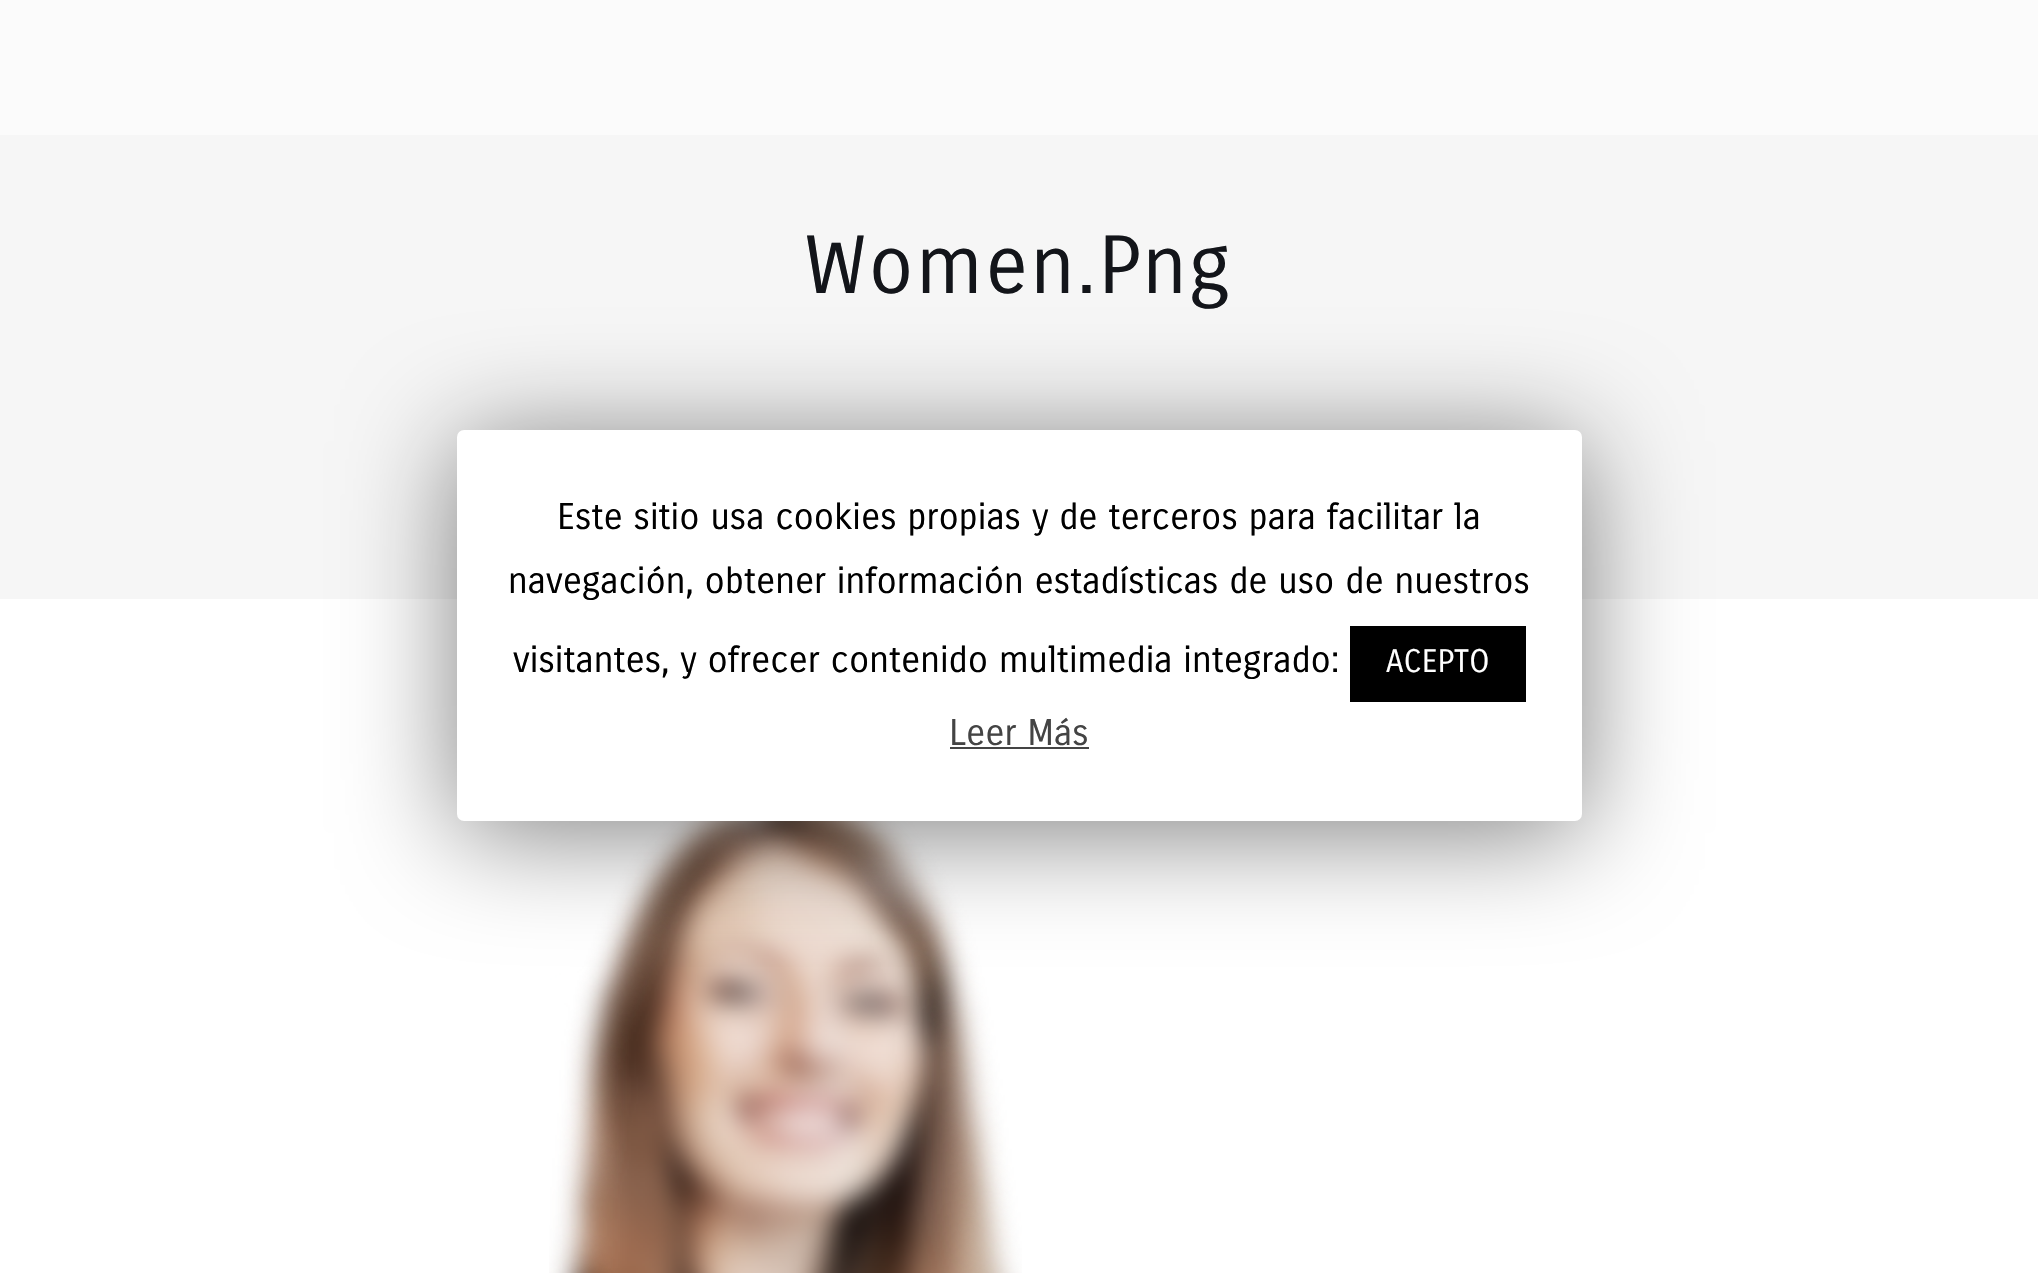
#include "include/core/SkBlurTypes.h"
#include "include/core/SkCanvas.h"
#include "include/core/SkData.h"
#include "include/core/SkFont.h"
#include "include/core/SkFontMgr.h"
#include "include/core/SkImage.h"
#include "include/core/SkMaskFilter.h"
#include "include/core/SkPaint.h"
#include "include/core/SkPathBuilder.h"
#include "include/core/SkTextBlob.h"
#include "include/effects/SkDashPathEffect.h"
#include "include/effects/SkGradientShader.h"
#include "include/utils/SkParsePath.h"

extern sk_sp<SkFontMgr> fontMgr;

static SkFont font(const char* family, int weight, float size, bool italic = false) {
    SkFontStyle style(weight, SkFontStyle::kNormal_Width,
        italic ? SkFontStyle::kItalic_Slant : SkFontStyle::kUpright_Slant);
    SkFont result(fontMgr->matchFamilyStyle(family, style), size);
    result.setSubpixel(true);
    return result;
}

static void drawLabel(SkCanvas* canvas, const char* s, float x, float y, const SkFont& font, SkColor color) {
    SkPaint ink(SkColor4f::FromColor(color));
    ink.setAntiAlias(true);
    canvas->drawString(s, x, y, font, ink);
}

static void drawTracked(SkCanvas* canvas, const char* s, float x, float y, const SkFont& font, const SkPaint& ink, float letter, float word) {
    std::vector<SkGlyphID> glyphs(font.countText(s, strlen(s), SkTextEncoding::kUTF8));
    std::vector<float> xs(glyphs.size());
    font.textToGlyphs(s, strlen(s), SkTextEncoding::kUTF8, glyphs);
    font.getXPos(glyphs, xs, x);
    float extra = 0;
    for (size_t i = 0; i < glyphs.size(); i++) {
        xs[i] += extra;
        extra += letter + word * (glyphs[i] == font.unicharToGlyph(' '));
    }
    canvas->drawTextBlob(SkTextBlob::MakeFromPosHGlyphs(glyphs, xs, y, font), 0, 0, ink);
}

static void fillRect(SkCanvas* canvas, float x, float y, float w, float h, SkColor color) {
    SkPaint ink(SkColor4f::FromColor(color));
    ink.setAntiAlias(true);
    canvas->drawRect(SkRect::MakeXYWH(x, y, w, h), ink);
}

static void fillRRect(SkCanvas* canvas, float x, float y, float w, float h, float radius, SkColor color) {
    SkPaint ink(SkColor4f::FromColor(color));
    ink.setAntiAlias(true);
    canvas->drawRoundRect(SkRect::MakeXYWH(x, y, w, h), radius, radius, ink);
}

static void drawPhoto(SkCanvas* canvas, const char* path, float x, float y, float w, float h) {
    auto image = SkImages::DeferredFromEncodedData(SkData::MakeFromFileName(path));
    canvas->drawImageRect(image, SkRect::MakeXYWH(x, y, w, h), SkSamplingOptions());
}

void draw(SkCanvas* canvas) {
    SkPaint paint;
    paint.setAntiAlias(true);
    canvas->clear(0xFFFFFFFF);
    fillRect(canvas, 0, 0, 2038, 135, 0xFFFBFBFB);
    fillRect(canvas, 0, 135, 2038, 464, 0xFFF6F6F6);
    SkFont font1 = font("Carrois Gothic", 400, 80);
    paint.setColor(0xFF13151A);
    drawTracked(canvas, "Women.Png", 805, 293, font1, paint, 2.75f, 0);
    drawPhoto(canvas, "assets/img1.png", 549, 821, 473, 452);
    paint.setColor(0x80000000);
    paint.setMaskFilter(SkMaskFilter::MakeBlur(kNormal_SkBlurStyle, 56));
    canvas->drawRoundRect(SkRect::MakeXYWH(457, 441, 1125, 392), 7, 7, paint);
    paint.setMaskFilter(nullptr);
    fillRRect(canvas, 457, 430, 1125, 391, 7, 0xFFFFFFFF);
    SkFont font2 = font("Carrois Gothic", 400, 36);
    drawLabel(canvas, "Este sitio usa cookies propias y de terceros para facilitar la", 557, 529, font2, 0xFF000000);
    drawLabel(canvas, "navegación, obtener información estadísticas de uso de nuestros", 508, 593, font2, 0xFF000000);
    drawLabel(canvas, "visitantes, y ofrecer contenido multimedia integrado:", 513, 672, font2, 0xFF000000);
    fillRect(canvas, 1350, 626, 176, 76, 0xFF000000);
    SkFont font3 = font("Carrois Gothic", 400, 31.5f);
    drawLabel(canvas, "ACEPTO", 1386, 672, font3, 0xFFFFFFFF);
    drawLabel(canvas, "Leer Más", 949, 745, font2, 0xFF444444);
    fillRect(canvas, 950, 747, 139, 2, 0xFF444444);
}
